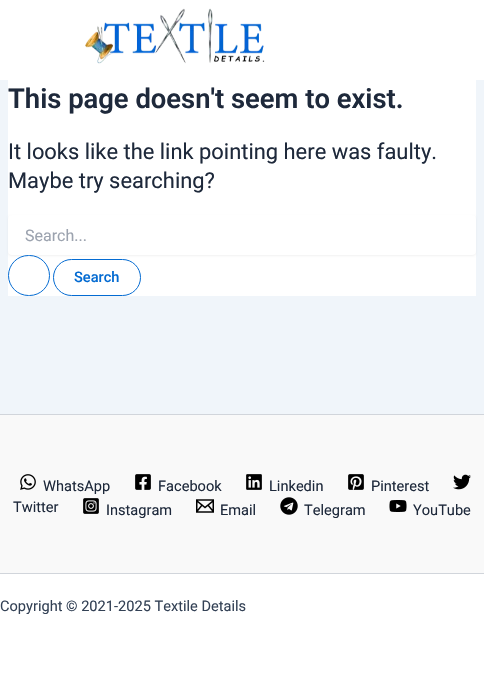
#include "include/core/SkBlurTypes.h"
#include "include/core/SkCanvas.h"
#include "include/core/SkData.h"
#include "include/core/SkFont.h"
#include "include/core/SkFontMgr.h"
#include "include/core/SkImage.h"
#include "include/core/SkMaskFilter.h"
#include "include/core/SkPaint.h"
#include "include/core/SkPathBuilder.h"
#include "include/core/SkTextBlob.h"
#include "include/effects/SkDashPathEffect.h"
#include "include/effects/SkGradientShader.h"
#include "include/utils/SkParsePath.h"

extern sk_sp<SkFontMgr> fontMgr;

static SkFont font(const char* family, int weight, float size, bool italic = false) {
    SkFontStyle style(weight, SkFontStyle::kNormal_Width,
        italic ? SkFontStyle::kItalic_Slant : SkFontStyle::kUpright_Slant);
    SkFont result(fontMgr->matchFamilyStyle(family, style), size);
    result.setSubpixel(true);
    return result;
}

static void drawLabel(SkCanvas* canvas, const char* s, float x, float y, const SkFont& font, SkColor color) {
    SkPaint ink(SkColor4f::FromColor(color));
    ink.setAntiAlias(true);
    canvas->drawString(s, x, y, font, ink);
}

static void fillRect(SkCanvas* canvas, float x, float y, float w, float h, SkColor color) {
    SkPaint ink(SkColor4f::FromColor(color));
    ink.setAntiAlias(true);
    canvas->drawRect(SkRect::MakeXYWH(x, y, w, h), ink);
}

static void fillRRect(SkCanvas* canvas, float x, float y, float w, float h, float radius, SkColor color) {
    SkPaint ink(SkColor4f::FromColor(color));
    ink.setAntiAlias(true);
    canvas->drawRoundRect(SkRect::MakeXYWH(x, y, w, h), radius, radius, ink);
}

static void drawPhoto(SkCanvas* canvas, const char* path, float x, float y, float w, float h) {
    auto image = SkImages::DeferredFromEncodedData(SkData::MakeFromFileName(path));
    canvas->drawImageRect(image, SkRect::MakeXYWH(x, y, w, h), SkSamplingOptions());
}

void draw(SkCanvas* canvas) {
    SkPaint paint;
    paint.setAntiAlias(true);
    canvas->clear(0xFFF0F5FA);
    fillRect(canvas, 0, 0, 484, 80, 0xFFFFFFFF);
    drawPhoto(canvas, "assets/img1.png", 85, 8, 180, 56);
    fillRect(canvas, 8, 80, 468, 216, 0xFFFFFFFF);
    SkFont font1 = font("Roboto", 600, 27.4f);
    drawLabel(canvas, "This page doesn't seem to exist.", 8, 108, font1, 0xFF1E293B);
    SkFont font2 = font("Roboto", 400, 21.9f);
    drawLabel(canvas, "It looks like the link pointing here was faulty.", 8, 159, font2, 0xFF1E293B);
    drawLabel(canvas, "Maybe try searching?", 8, 188, font2, 0xFF1E293B);
    paint.setColor(0x0D000000);
    paint.setMaskFilter(SkMaskFilter::MakeBlur(kNormal_SkBlurStyle, 1));
    canvas->drawRoundRect(SkRect::MakeXYWH(8, 216, 468, 40), 4, 4, paint);
    paint.setMaskFilter(nullptr);
    fillRRect(canvas, 8, 215, 468, 40, 4, 0xFFFFFFFF);
    SkFont font3 = font("Roboto", 400, 16);
    drawLabel(canvas, "Search...", 25, 241, font3, 0xFF9CA3AF);
    paint.setStroke(true);
    paint.setStrokeWidth(1);
    paint.setColor(0xFF046BD2);
    canvas->drawRoundRect(SkRect::MakeXYWH(8.5f, 255.5f, 41, 40), 20, 20, paint);
    canvas->drawRoundRect(SkRect::MakeXYWH(53.5f, 259.5f, 87, 36), 18, 18, paint);
    SkFont font4 = font("Roboto", 500, 14.6f);
    drawLabel(canvas, "Search", 74, 282, font4, 0xFF046BD2);
    fillRect(canvas, 0, 415, 484, 158, 0xFFF9F9F9);
    fillRect(canvas, 0, 414, 484, 1, 0xFFD1D5DB);
    drawPhoto(canvas, "assets/img2.png", 20, 474, 16, 16);
    SkFont font5 = font("Roboto", 400, 14.6f);
    drawLabel(canvas, "WhatsApp", 43, 491, font5, 0xFF1E293B);
    drawPhoto(canvas, "assets/img3.png", 135, 474, 16, 16);
    drawLabel(canvas, "Facebook", 158, 491, font5, 0xFF1E293B);
    drawPhoto(canvas, "assets/img4.png", 246, 474, 16, 16);
    drawLabel(canvas, "Linkedin", 269, 491, font5, 0xFF1E293B);
    drawPhoto(canvas, "assets/img5.png", 348, 474, 16, 16);
    drawLabel(canvas, "Pinterest", 371, 491, font5, 0xFF1E293B);
    drawPhoto(canvas, "assets/img6.png", 453, 474, 18, 16);
    drawLabel(canvas, "Twitter", 13, 512, font5, 0xFF1E293B);
    drawPhoto(canvas, "assets/img7.png", 83, 498, 16, 16);
    drawLabel(canvas, "Instagram", 106, 515, font5, 0xFF1E293B);
    drawPhoto(canvas, "assets/img8.png", 196, 499, 18, 14);
    drawLabel(canvas, "Email", 220, 515, font5, 0xFF1E293B);
    drawPhoto(canvas, "assets/img9.png", 280, 497, 18, 18);
    drawLabel(canvas, "Telegram", 304, 515, font5, 0xFF1E293B);
    drawPhoto(canvas, "assets/img10.png", 389, 500, 18, 12);
    drawLabel(canvas, "YouTube", 413, 515, font5, 0xFF1E293B);
    fillRect(canvas, 0, 574, 484, 100, 0xFFFFFFFF);
    fillRect(canvas, 0, 573, 484, 1, 0xFFD1D5DB);
    drawLabel(canvas, "Copyright © 2021-2025 Textile Details", 0, 611, font5, 0xFF334155);
}
